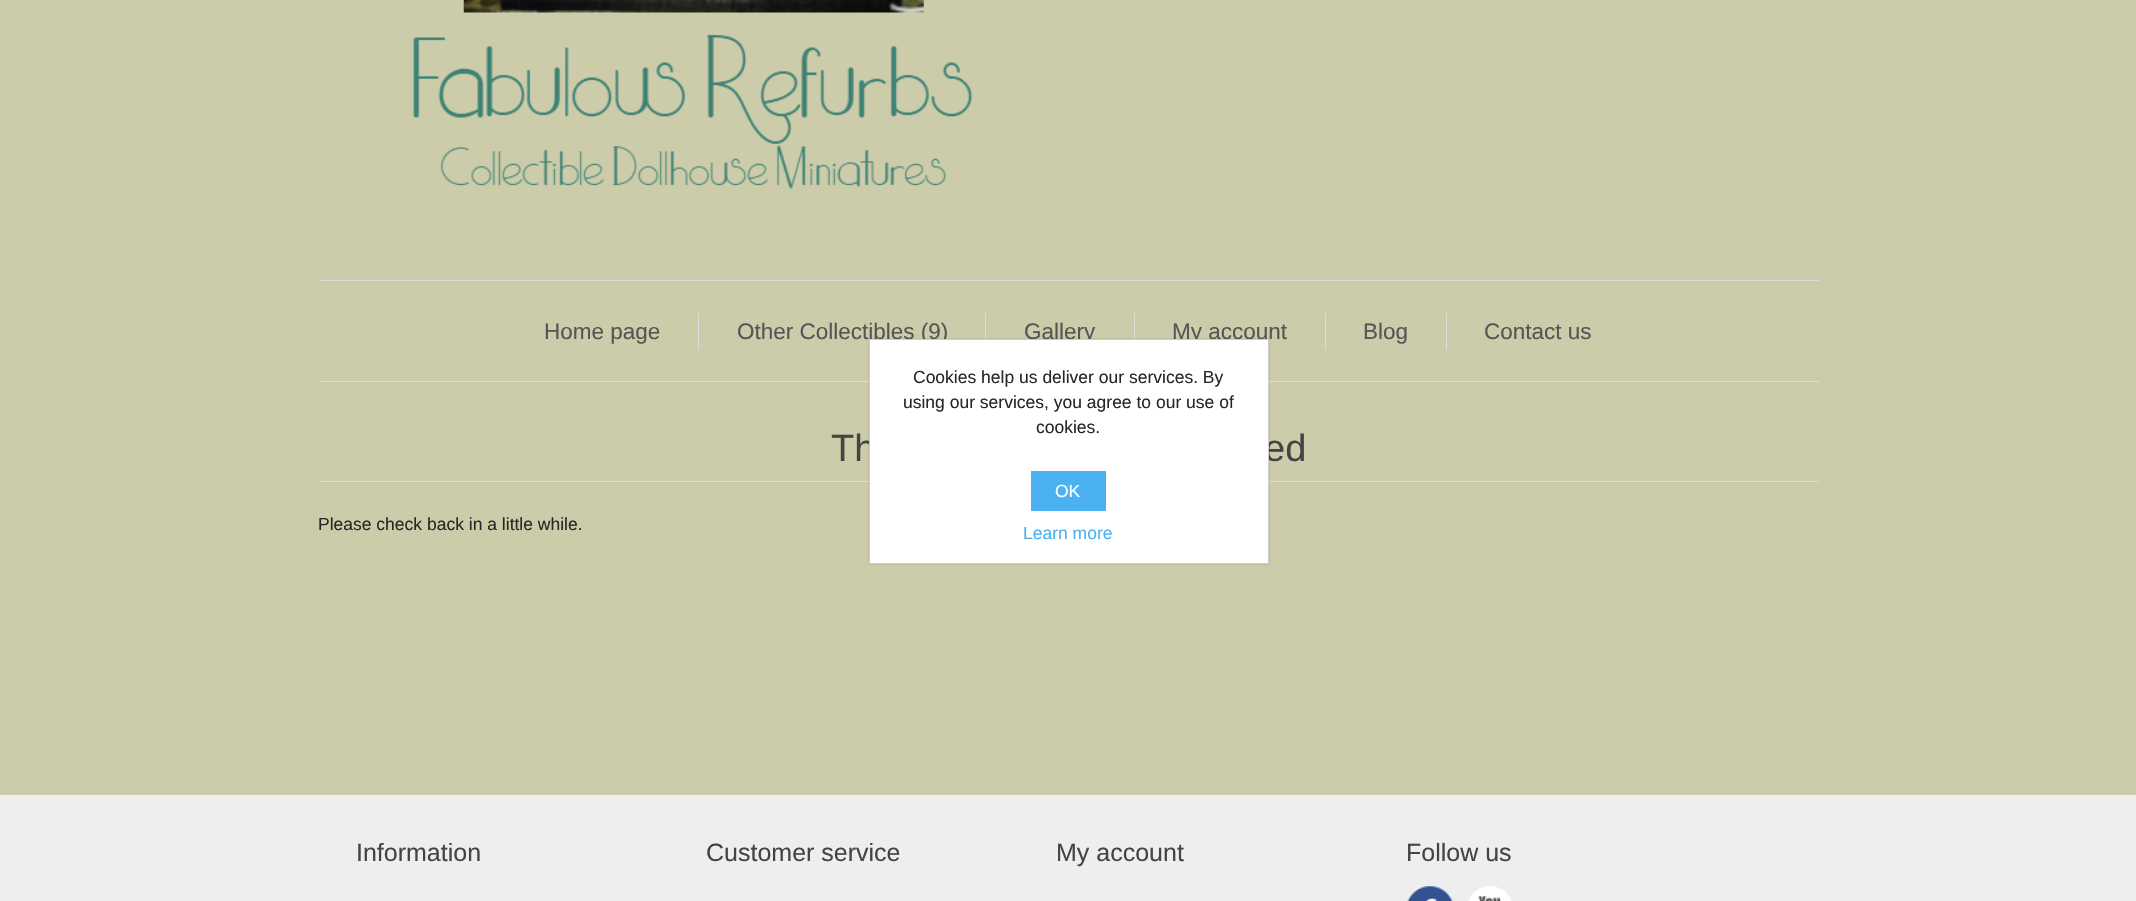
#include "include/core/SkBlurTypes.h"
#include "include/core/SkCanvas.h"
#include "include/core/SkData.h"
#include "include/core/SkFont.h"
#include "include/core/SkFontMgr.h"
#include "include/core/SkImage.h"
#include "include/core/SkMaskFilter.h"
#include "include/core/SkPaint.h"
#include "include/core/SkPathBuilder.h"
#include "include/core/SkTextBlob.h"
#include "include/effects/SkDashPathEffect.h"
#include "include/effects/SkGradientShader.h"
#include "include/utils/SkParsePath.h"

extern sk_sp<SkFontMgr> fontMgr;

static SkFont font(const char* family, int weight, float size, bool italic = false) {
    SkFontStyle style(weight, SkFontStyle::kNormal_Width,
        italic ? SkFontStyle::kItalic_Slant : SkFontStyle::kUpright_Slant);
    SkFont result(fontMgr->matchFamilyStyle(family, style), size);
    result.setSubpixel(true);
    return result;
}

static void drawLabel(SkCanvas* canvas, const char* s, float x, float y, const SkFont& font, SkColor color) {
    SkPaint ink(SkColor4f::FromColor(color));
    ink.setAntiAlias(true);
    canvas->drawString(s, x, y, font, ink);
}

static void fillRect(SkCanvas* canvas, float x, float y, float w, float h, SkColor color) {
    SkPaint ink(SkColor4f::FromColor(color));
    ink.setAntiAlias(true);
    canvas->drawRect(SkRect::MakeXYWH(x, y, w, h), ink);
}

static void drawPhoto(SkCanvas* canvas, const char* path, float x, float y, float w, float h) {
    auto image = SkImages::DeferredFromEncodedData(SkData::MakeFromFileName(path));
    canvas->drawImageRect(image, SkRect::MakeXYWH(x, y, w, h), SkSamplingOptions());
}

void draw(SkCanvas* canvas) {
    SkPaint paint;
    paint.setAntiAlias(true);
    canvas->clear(0xFFCCCCAA);
    drawPhoto(canvas, "assets/img1.png", 412, 0, 561, 189);
    fillRect(canvas, 319, 280, 1500, 1, 0xFFDDDDDD);
    fillRect(canvas, 319, 381, 1500, 1, 0xFFDDDDDD);
    SkFont font1 = font("Liberation Sans", 400, 22.5f);
    drawLabel(canvas, "Home page", 544, 339, font1, 0xFF555555);
    fillRect(canvas, 698, 313, 1, 37, 0xFFDDDDDD);
    drawLabel(canvas, "Other Collectibles (9)", 737, 339, font1, 0xFF555555);
    fillRect(canvas, 985, 313, 1, 26, 0xFFDDDDDD);
    drawLabel(canvas, "Gallery", 1024, 339, font1, 0xFF555555);
    fillRect(canvas, 1134, 313, 1, 26, 0xFFDDDDDD);
    drawLabel(canvas, "My account", 1172, 339, font1, 0xFF555555);
    fillRect(canvas, 1325, 313, 1, 37, 0xFFDDDDDD);
    drawLabel(canvas, "Blog", 1363, 339, font1, 0xFF555555);
    fillRect(canvas, 1446, 313, 1, 37, 0xFFDDDDDD);
    drawLabel(canvas, "Contact us", 1484, 339, font1, 0xFF555555);
    fillRect(canvas, 319, 481, 1500, 1, 0xFFDDDDDD);
    SkFont font2 = font("Liberation Sans", 400, 38);
    drawLabel(canvas, "Th", 831, 461, font2, 0xFF444444);
    drawLabel(canvas, "ed", 1264, 461, font2, 0xFF444444);
    SkFont font3 = font("Liberation Sans", 400, 17.5f);
    drawLabel(canvas, "Please check back in a little while.", 318, 530, font3, 0xFF272727);
    fillRect(canvas, 0, 795, 2136, 106, 0xFFEEEEEE);
    SkFont font4 = font("Liberation Sans", 400, 25);
    drawLabel(canvas, "Information", 356, 861, font4, 0xFF444444);
    drawLabel(canvas, "Customer service", 706, 861, font4, 0xFF444444);
    drawLabel(canvas, "My account", 1056, 861, font4, 0xFF444444);
    drawLabel(canvas, "Follow us", 1406, 861, font4, 0xFF444444);
    drawPhoto(canvas, "assets/img2.png", 1407, 886, 46, 15);
    drawPhoto(canvas, "assets/img3.png", 1468, 886, 44, 15);
    paint.setColor(0x26000000);
    paint.setMaskFilter(SkMaskFilter::MakeBlur(kNormal_SkBlurStyle, 1));
    canvas->drawRect(SkRect::MakeXYWH(869, 339, 400, 225), paint);
    paint.setMaskFilter(nullptr);
    paint.setColor(0xFFFFFFFF);
    canvas->drawRect(SkRect::MakeXYWH(869.5f, 339.5f, 399, 224), paint);
    paint.setStroke(true);
    paint.setStrokeWidth(1);
    paint.setColor(0xFFCCCCCC);
    canvas->drawRect(SkRect::MakeXYWH(869.5f, 339.5f, 399, 224), paint);
    drawLabel(canvas, "Cookies help us deliver our services. By", 913, 383, font3, 0xFF272727);
    drawLabel(canvas, "using our services, you agree to our use of", 903, 408, font3, 0xFF272727);
    drawLabel(canvas, "cookies.", 1036, 433, font3, 0xFF272727);
    fillRect(canvas, 1031, 471, 75, 40, 0xFF4AB2F1);
    drawLabel(canvas, "OK", 1055, 497, font3, 0xFFFFFFFF);
    drawLabel(canvas, "Learn more", 1023, 539, font3, 0xFF4AB2F1);
}
